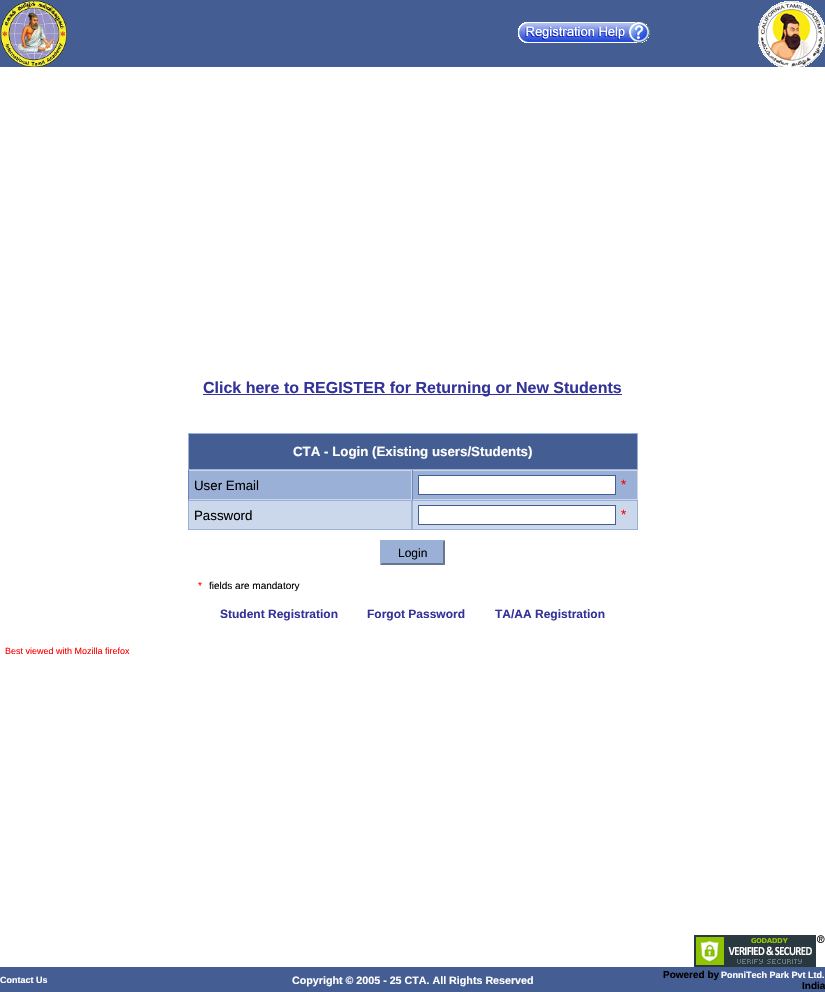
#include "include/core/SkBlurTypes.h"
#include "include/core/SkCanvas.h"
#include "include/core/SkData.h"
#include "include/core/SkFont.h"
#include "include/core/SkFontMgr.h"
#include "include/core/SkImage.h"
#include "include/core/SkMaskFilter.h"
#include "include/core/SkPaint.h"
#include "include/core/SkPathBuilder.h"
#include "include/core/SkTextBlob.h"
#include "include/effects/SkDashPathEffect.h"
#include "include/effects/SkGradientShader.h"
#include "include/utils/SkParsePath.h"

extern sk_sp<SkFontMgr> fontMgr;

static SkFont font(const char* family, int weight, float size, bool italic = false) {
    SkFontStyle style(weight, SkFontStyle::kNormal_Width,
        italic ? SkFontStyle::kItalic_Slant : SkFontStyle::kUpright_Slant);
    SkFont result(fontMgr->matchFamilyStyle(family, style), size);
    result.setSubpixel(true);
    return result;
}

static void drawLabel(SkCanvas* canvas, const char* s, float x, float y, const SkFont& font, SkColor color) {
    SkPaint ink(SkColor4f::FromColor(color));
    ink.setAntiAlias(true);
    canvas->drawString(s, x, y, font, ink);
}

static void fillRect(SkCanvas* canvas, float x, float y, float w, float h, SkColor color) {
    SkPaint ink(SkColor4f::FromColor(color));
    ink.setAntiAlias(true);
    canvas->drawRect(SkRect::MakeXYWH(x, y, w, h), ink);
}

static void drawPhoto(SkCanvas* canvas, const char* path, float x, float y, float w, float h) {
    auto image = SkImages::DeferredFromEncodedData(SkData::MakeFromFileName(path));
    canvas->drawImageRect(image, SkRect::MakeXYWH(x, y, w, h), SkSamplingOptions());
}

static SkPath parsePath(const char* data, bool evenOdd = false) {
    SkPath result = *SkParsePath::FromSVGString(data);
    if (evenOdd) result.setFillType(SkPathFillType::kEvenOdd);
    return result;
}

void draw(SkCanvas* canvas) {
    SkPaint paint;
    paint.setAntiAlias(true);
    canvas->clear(0xFFFFFFFF);
    fillRect(canvas, 67, 0, 758, 67, 0xFF445D93);
    drawPhoto(canvas, "assets/img1.png", 0, 0, 67, 67);
    drawPhoto(canvas, "assets/img2.png", 758, 1, 67, 66);
    drawPhoto(canvas, "assets/img3.png", 518, 22, 132, 21);
    fillRect(canvas, 203, 394, 419, 1, 0xFF333399);
    SkFont font1 = font("Liberation Sans", 700, 16);
    drawLabel(canvas, "Click here to REGISTER for Returning or New Students", 203, 393, font1, 0xFF333399);
    fillRect(canvas, 189, 434, 448, 35, 0xFF445D93);
    fillRect(canvas, 188, 433, 450, 1, 0xFF9AB0D6);
    fillRect(canvas, 637, 433, 1, 37, 0xFF9AB0D6);
    fillRect(canvas, 188, 469, 450, 1, 0xFF9AB0D6);
    fillRect(canvas, 188, 433, 1, 37, 0xFF9AB0D6);
    SkFont font2 = font("Liberation Sans", 700, 13.3f);
    drawLabel(canvas, "CTA - Login (Existing users/Students)", 293, 456, font2, 0xFFFFFFFF);
    fillRect(canvas, 189, 471, 222, 28, 0xFF9AB0D6);
    fillRect(canvas, 188, 470, 450, 1, 0xFFCBD7EB);
    fillRect(canvas, 411, 470, 1, 30, 0xFFCBD7EB);
    fillRect(canvas, 188, 499, 224, 1, 0xFFCBD7EB);
    fillRect(canvas, 188, 470, 1, 30, 0xFF6E80BE);
    SkFont font3 = font("Liberation Sans", 400, 13.3f);
    drawLabel(canvas, "User Email", 194, 490, font3, 0xFF000000);
    fillRect(canvas, 413, 471, 224, 28, 0xFF9AB0D6);
    fillRect(canvas, 637, 470, 1, 30, 0xFFCBD7EB);
    fillRect(canvas, 412, 499, 226, 1, 0xFFCBD7EB);
    fillRect(canvas, 412, 470, 1, 30, 0xFF6E80BE);
    paint.setColor(0xFFFFFFFF);
    canvas->drawRect(SkRect::MakeXYWH(418.5f, 475.5f, 197, 19), paint);
    paint.setStroke(true);
    paint.setStrokeWidth(1);
    paint.setColor(0xFF445D93);
    canvas->drawRect(SkRect::MakeXYWH(418.5f, 475.5f, 197, 19), paint);
    drawLabel(canvas, "*", 621, 489, font3, 0xFFFF0000);
    fillRect(canvas, 189, 501, 222, 28, 0xFFCBD7EB);
    fillRect(canvas, 188, 500, 450, 1, 0xFF9AB0D6);
    fillRect(canvas, 411, 500, 1, 30, 0xFF9AB0D6);
    fillRect(canvas, 188, 529, 224, 1, 0xFF9AB0D6);
    fillRect(canvas, 188, 500, 1, 30, 0xFF9AB0D6);
    drawLabel(canvas, "Password", 194, 520, font3, 0xFF000000);
    fillRect(canvas, 413, 501, 224, 28, 0xFFCBD7EB);
    fillRect(canvas, 637, 500, 1, 30, 0xFF9AB0D6);
    fillRect(canvas, 412, 529, 226, 1, 0xFF9AB0D6);
    fillRect(canvas, 412, 500, 1, 30, 0xFF9AB0D6);
    paint.setStroke(false);
    paint.setColor(0xFFFFFFFF);
    canvas->drawRect(SkRect::MakeXYWH(418.5f, 505.5f, 197, 19), paint);
    paint.setStroke(true);
    paint.setColor(0xFF445D93);
    canvas->drawRect(SkRect::MakeXYWH(418.5f, 505.5f, 197, 19), paint);
    drawLabel(canvas, "*", 621, 519, font3, 0xFFFF0000);
    fillRect(canvas, 380, 540, 65, 25, 0xFF9AB0D6);
    paint.setStroke(false);
    paint.setColor(0xFF67758F);
    canvas->drawPath(parsePath("M445 540V565L443 563V542Z"), paint);
    canvas->drawPath(parsePath("M445 565H380L382 563H443Z"), paint);
    paint.setColor(0xFF9AB0D6);
    canvas->drawPath(parsePath("M380 565V540L382 542V563Z"), paint);
    SkFont font4 = font("Liberation Sans", 400, 12);
    drawLabel(canvas, "Login", 398, 557, font4, 0xFF000000);
    SkFont font5 = font("Liberation Sans", 400, 10);
    drawLabel(canvas, "*", 198, 589, font5, 0xFFFF0000);
    drawLabel(canvas, "fields are mandatory", 209, 589, font5, 0xFF000000);
    SkFont font6 = font("Liberation Sans", 700, 12);
    drawLabel(canvas, "Student Registration", 220, 618, font6, 0xFF333399);
    drawLabel(canvas, "Forgot Password", 367, 618, font6, 0xFF333399);
    drawLabel(canvas, "TA/AA Registration", 495, 618, font6, 0xFF333399);
    SkFont font7 = font("Liberation Sans", 400, 9);
    drawLabel(canvas, "Best viewed with Mozilla firefox", 5, 654, font7, 0xFFFF0000);
    drawPhoto(canvas, "assets/img4.png", 694, 935, 131, 32);
    fillRect(canvas, 0, 967, 825, 25, 0xFF445D93);
    SkFont font8 = font("Liberation Sans", 700, 9);
    drawLabel(canvas, "Contact Us", 0, 983, font8, 0xFFFFFFFF);
    SkFont font9 = font("Liberation Sans", 700, 10.7f);
    drawLabel(canvas, "Copyright © 2005 - 25 CTA. All Rights Reserved", 292, 984, font9, 0xFFFFFFFF);
    SkFont font10 = font("Liberation Sans", 700, 10);
    drawLabel(canvas, "Powered by", 663, 978, font10, 0xFF000000);
    drawLabel(canvas, "PonniTech Park Pvt Ltd.", 721, 978, font8, 0xFFFFFFFF);
    drawLabel(canvas, "India", 802, 989, font10, 0xFF000000);
}
